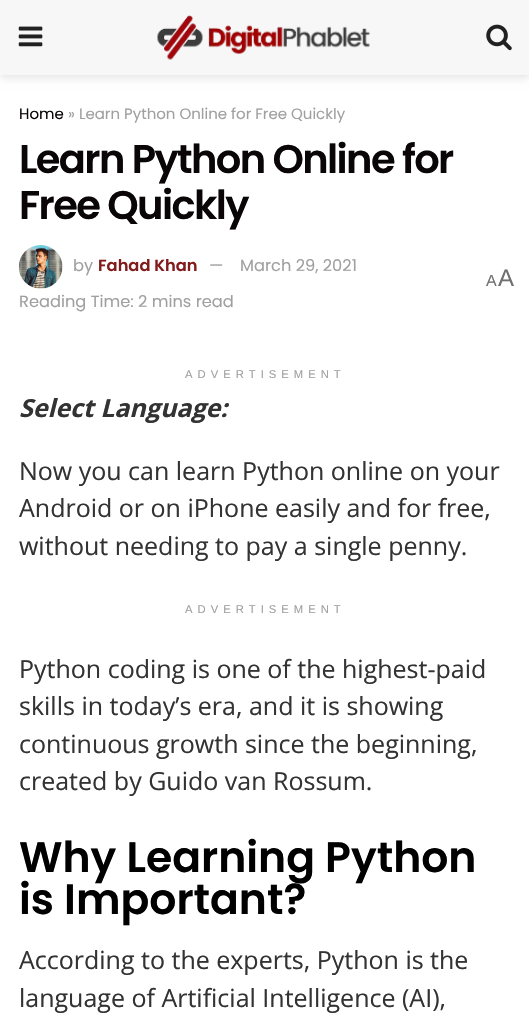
#include "include/core/SkBlurTypes.h"
#include "include/core/SkCanvas.h"
#include "include/core/SkData.h"
#include "include/core/SkFont.h"
#include "include/core/SkFontMgr.h"
#include "include/core/SkImage.h"
#include "include/core/SkMaskFilter.h"
#include "include/core/SkPaint.h"
#include "include/core/SkPathBuilder.h"
#include "include/core/SkTextBlob.h"
#include "include/effects/SkDashPathEffect.h"
#include "include/effects/SkGradientShader.h"
#include "include/utils/SkParsePath.h"

extern sk_sp<SkFontMgr> fontMgr;

static SkFont font(const char* family, int weight, float size, bool italic = false) {
    SkFontStyle style(weight, SkFontStyle::kNormal_Width,
        italic ? SkFontStyle::kItalic_Slant : SkFontStyle::kUpright_Slant);
    SkFont result(fontMgr->matchFamilyStyle(family, style), size);
    result.setSubpixel(true);
    return result;
}

static void drawLabel(SkCanvas* canvas, const char* s, float x, float y, const SkFont& font, SkColor color) {
    SkPaint ink(SkColor4f::FromColor(color));
    ink.setAntiAlias(true);
    canvas->drawString(s, x, y, font, ink);
}

static void drawTracked(SkCanvas* canvas, const char* s, float x, float y, const SkFont& font, const SkPaint& ink, float letter, float word) {
    std::vector<SkGlyphID> glyphs(font.countText(s, strlen(s), SkTextEncoding::kUTF8));
    std::vector<float> xs(glyphs.size());
    font.textToGlyphs(s, strlen(s), SkTextEncoding::kUTF8, glyphs);
    font.getXPos(glyphs, xs, x);
    float extra = 0;
    for (size_t i = 0; i < glyphs.size(); i++) {
        xs[i] += extra;
        extra += letter + word * (glyphs[i] == font.unicharToGlyph(' '));
    }
    canvas->drawTextBlob(SkTextBlob::MakeFromPosHGlyphs(glyphs, xs, y, font), 0, 0, ink);
}

static void fillRect(SkCanvas* canvas, float x, float y, float w, float h, SkColor color) {
    SkPaint ink(SkColor4f::FromColor(color));
    ink.setAntiAlias(true);
    canvas->drawRect(SkRect::MakeXYWH(x, y, w, h), ink);
}

static void drawPhoto(SkCanvas* canvas, const char* path, float x, float y, float w, float h) {
    auto image = SkImages::DeferredFromEncodedData(SkData::MakeFromFileName(path));
    canvas->drawImageRect(image, SkRect::MakeXYWH(x, y, w, h), SkSamplingOptions());
}

void draw(SkCanvas* canvas) {
    SkPaint paint;
    paint.setAntiAlias(true);
    canvas->clear(0xFFFFFFFF);
    paint.setColor(0x1A000000);
    paint.setMaskFilter(SkMaskFilter::MakeBlur(kNormal_SkBlurStyle, 4));
    canvas->drawRect(SkRect::MakeXYWH(0, 3, 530, 75), paint);
    paint.setMaskFilter(nullptr);
    fillRect(canvas, 0, 0, 529, 75, 0xFFF7F7F7);
    drawPhoto(canvas, "assets/img1.png", 18, 26, 25, 21);
    drawPhoto(canvas, "assets/img2.png", 157, 15, 213, 46);
    drawPhoto(canvas, "assets/img3.png", 486, 24, 26, 27);
    SkFont font1 = font("Poppins", 400, 15);
    drawLabel(canvas, "Home", 19, 119, font1, 0xFF0A0607);
    drawLabel(canvas, "» Learn Python Online for Free Quickly", 68, 119, font1, 0xFFA0A0A0);
    SkFont font2 = font("Poppins", 600, 40);
    paint.setColor(0xFF0A0607);
    drawTracked(canvas, "Learn Python Online for", 19, 173, font2, paint, -1.6f, 0);
    drawTracked(canvas, "Free Quickly", 19, 219, font2, paint, -1.6f, 0);
    drawPhoto(canvas, "assets/img4.png", 18, 245, 45, 44);
    SkFont font3 = font("Poppins", 400, 16.25f);
    drawLabel(canvas, "by", 73, 271, font3, 0xFFA0A0A0);
    SkFont font4 = font("Poppins", 600, 16.25f);
    drawLabel(canvas, "Fahad Khan", 98, 271, font4, 0xFF821C1C);
    drawLabel(canvas, "—", 209, 271, font3, 0xFFA0A0A0);
    drawLabel(canvas, "March 29, 2021", 240, 271, font3, 0xFFA0A0A0);
    drawLabel(canvas, "Reading Time: 2 mins read", 19, 307, font3, 0xFFA0A0A0);
    SkFont font5 = font("Liberation Sans", 400, 16);
    drawLabel(canvas, "A", 486, 286, font5, 0xFF707070);
    SkFont font6 = font("Liberation Sans", 400, 24);
    drawLabel(canvas, "A", 498, 286, font6, 0xFF707070);
    SkFont font7 = font("Liberation Sans", 400, 11.25f);
    paint.setColor(0xFFA0A0A0);
    drawTracked(canvas, "ADVERTISEMENT", 185, 378, font7, paint, 5, 0);
    SkFont font8 = font("Open Sans", 700, 25, true);
    drawLabel(canvas, "Select Language:", 19, 417, font8, 0xFF333333);
    SkFont font9 = font("Open Sans", 400, 25);
    drawLabel(canvas, "Now you can learn Python online on your", 19, 480, font9, 0xFF333333);
    drawLabel(canvas, "Android or on iPhone easily and for free,", 19, 517, font9, 0xFF333333);
    drawLabel(canvas, "without needing to pay a single penny.", 19, 555, font9, 0xFF333333);
    drawTracked(canvas, "ADVERTISEMENT", 185, 613, font7, paint, 5, 0);
    drawLabel(canvas, "Python coding is one of the highest-paid", 19, 678, font9, 0xFF333333);
    drawLabel(canvas, "skills in today’s era, and it is showing", 19, 715, font9, 0xFF333333);
    drawLabel(canvas, "continuous growth since the beginning,", 19, 753, font9, 0xFF333333);
    drawLabel(canvas, "created by Guido van Rossum.", 19, 790, font9, 0xFF333333);
    SkFont font10 = font("Poppins", 600, 42.5f);
    drawLabel(canvas, "Why Learning Python", 19, 872, font10, 0xFF000000);
    drawLabel(canvas, "is Important?", 19, 914, font10, 0xFF000000);
    drawLabel(canvas, "According to the experts, Python is the", 19, 969, font9, 0xFF333333);
    drawLabel(canvas, "language of Artificial Intelligence (AI),", 19, 1007, font9, 0xFF333333);
}
